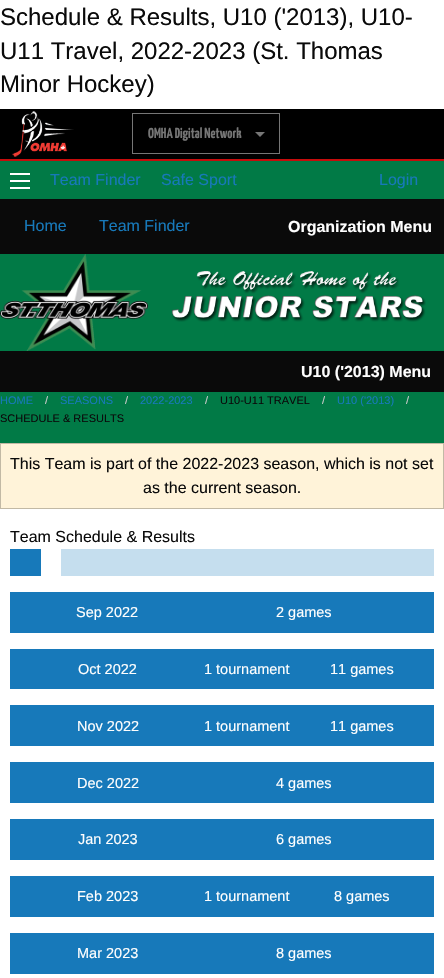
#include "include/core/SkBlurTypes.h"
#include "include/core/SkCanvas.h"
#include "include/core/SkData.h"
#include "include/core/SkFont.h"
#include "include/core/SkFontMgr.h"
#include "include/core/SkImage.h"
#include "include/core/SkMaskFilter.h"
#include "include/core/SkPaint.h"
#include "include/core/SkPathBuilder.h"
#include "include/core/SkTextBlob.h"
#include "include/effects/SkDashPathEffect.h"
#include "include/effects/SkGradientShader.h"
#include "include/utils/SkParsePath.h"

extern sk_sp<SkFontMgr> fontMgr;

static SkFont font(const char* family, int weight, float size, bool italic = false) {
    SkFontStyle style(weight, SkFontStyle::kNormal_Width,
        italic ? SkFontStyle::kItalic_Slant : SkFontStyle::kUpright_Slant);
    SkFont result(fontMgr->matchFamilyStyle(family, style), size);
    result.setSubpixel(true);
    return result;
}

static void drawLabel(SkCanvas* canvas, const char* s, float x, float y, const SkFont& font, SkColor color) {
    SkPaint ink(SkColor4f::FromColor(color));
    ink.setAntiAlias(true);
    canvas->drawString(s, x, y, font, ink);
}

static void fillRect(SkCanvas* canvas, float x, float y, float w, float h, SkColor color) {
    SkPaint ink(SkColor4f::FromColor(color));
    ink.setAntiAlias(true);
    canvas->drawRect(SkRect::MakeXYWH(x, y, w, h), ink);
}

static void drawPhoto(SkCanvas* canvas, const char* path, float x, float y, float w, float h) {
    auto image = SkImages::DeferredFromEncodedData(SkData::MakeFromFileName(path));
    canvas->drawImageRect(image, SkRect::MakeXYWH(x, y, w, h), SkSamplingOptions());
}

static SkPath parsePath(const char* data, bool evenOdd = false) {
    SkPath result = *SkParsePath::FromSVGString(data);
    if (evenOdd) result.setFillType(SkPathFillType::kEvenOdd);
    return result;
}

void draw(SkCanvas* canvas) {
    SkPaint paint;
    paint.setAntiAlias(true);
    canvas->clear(0xFFFFFFFF);
    SkFont font1 = font("Liberation Sans", 400, 24);
    drawLabel(canvas, "Schedule & Results, U10 ('2013), U10-", 0, 25, font1, 0xFF0A0A0A);
    drawLabel(canvas, "U11 Travel, 2022-2023 (St. Thomas", 0, 59, font1, 0xFF0A0A0A);
    drawLabel(canvas, "Minor Hockey)", 0, 92, font1, 0xFF0A0A0A);
    fillRect(canvas, 0, 109, 444, 50, 0xFF000000);
    fillRect(canvas, 0, 159, 444, 2, 0xFFC60C0C);
    drawPhoto(canvas, "assets/img1.png", 12, 111, 62, 46);
    paint.setStroke(true);
    paint.setStrokeWidth(1);
    paint.setColor(0xFF767676);
    canvas->drawRect(SkRect::MakeXYWH(132.5f, 113.5f, 147, 40), paint);
    SkFont font2 = font("Yanone Kaffeesatz", 200, 14.5f);
    drawLabel(canvas, "OMHA Digital Network", 148, 138, font2, 0xFF767676);
    paint.setStroke(false);
    canvas->drawPath(parsePath("M255 132H265L260 137Z"), paint);
    fillRect(canvas, 0, 161, 444, 282, 0xFF017A46);
    fillRect(canvas, 10, 187, 20, 2, 0xFFFEFEFE);
    fillRect(canvas, 10, 180, 20, 2, 0xFFFEFEFE);
    fillRect(canvas, 10, 173, 20, 2, 0xFFFEFEFE);
    SkFont font3 = font("Liberation Sans", 400, 16);
    drawLabel(canvas, "Team Finder", 50, 185, font3, 0xFF1779BA);
    drawLabel(canvas, "Safe Sport", 161, 185, font3, 0xFF1779BA);
    drawLabel(canvas, "Login", 379, 185, font3, 0xFF1779BA);
    fillRect(canvas, 0, 199, 444, 55, 0xFF0A0A0A);
    drawLabel(canvas, "Home", 24, 231, font3, 0xFF1779BA);
    drawLabel(canvas, "Team Finder", 99, 231, font3, 0xFF1779BA);
    SkFont font4 = font("Liberation Sans", 700, 16);
    drawLabel(canvas, "Organization Menu", 288, 232, font4, 0xFFFEFEFE);
    drawPhoto(canvas, "assets/img2.png", 0, 254, 148, 97);
    drawPhoto(canvas, "assets/img3.png", 171, 271, 255, 51);
    fillRect(canvas, 0, 351, 444, 41, 0xFF0A0A0A);
    drawLabel(canvas, "U10 ('2013) Menu", 301, 377, font4, 0xFFFEFEFE);
    SkFont font5 = font("Liberation Sans", 400, 11);
    drawLabel(canvas, "HOME", 0, 404, font5, 0xFF1779BA);
    drawLabel(canvas, "/", 45, 404, font5, 0xFFCACACA);
    drawLabel(canvas, "SEASONS", 60, 404, font5, 0xFF1779BA);
    drawLabel(canvas, "/", 125, 404, font5, 0xFFCACACA);
    drawLabel(canvas, "2022-2023", 140, 404, font5, 0xFF1779BA);
    drawLabel(canvas, "/", 205, 404, font5, 0xFFCACACA);
    drawLabel(canvas, "U10-U11 TRAVEL", 220, 404, font5, 0xFF0A0A0A);
    drawLabel(canvas, "/", 322, 404, font5, 0xFFCACACA);
    drawLabel(canvas, "U10 ('2013)", 337, 404, font5, 0xFF1779BA);
    drawLabel(canvas, "/", 406, 404, font5, 0xFFCACACA);
    drawLabel(canvas, "SCHEDULE & RESULTS", 0, 422, font5, 0xFF0A0A0A);
    paint.setColor(0xFFFFF3D9);
    canvas->drawRect(SkRect::MakeXYWH(0.5f, 443.5f, 443, 65), paint);
    paint.setStroke(true);
    paint.setColor(0xFFC2B9A5);
    canvas->drawRect(SkRect::MakeXYWH(0.5f, 443.5f, 443, 65), paint);
    drawLabel(canvas, "This Team is part of the 2022-2023 season, which is not set", 10, 469, font3, 0xFF0A0A0A);
    drawLabel(canvas, "as the current season.", 143, 493, font3, 0xFF0A0A0A);
    drawLabel(canvas, "Team Schedule & Results", 10, 542, font3, 0xFF0A0A0A);
    fillRect(canvas, 10, 549, 31, 27, 0xFF1779BA);
    fillRect(canvas, 61, 549, 373, 27, 0xFFC5DEEE);
    fillRect(canvas, 10, 592, 424, 41, 0xFF1779BA);
    SkFont font6 = font("Liberation Sans", 400, 14.5f);
    drawLabel(canvas, "Sep 2022", 76, 617, font6, 0xFFFEFEFE);
    drawLabel(canvas, "2 games", 276, 617, font6, 0xFFFEFEFE);
    fillRect(canvas, 10, 649, 424, 40, 0xFF1779BA);
    drawLabel(canvas, "Oct 2022", 78, 674, font6, 0xFFFEFEFE);
    drawLabel(canvas, "1 tournament", 204, 674, font6, 0xFFFEFEFE);
    drawLabel(canvas, "11 games", 330, 674, font6, 0xFFFEFEFE);
    fillRect(canvas, 10, 705, 424, 41, 0xFF1779BA);
    drawLabel(canvas, "Nov 2022", 77, 731, font6, 0xFFFEFEFE);
    drawLabel(canvas, "1 tournament", 204, 731, font6, 0xFFFEFEFE);
    drawLabel(canvas, "11 games", 330, 731, font6, 0xFFFEFEFE);
    fillRect(canvas, 10, 762, 424, 41, 0xFF1779BA);
    drawLabel(canvas, "Dec 2022", 77, 788, font6, 0xFFFEFEFE);
    drawLabel(canvas, "4 games", 276, 788, font6, 0xFFFEFEFE);
    fillRect(canvas, 10, 819, 424, 41, 0xFF1779BA);
    drawLabel(canvas, "Jan 2023", 78, 844, font6, 0xFFFEFEFE);
    drawLabel(canvas, "6 games", 276, 844, font6, 0xFFFEFEFE);
    fillRect(canvas, 10, 876, 424, 41, 0xFF1779BA);
    drawLabel(canvas, "Feb 2023", 77, 901, font6, 0xFFFEFEFE);
    drawLabel(canvas, "1 tournament", 204, 901, font6, 0xFFFEFEFE);
    drawLabel(canvas, "8 games", 334, 901, font6, 0xFFFEFEFE);
    fillRect(canvas, 10, 933, 424, 41, 0xFF1779BA);
    drawLabel(canvas, "Mar 2023", 77, 958, font6, 0xFFFEFEFE);
    drawLabel(canvas, "8 games", 276, 958, font6, 0xFFFEFEFE);
}
